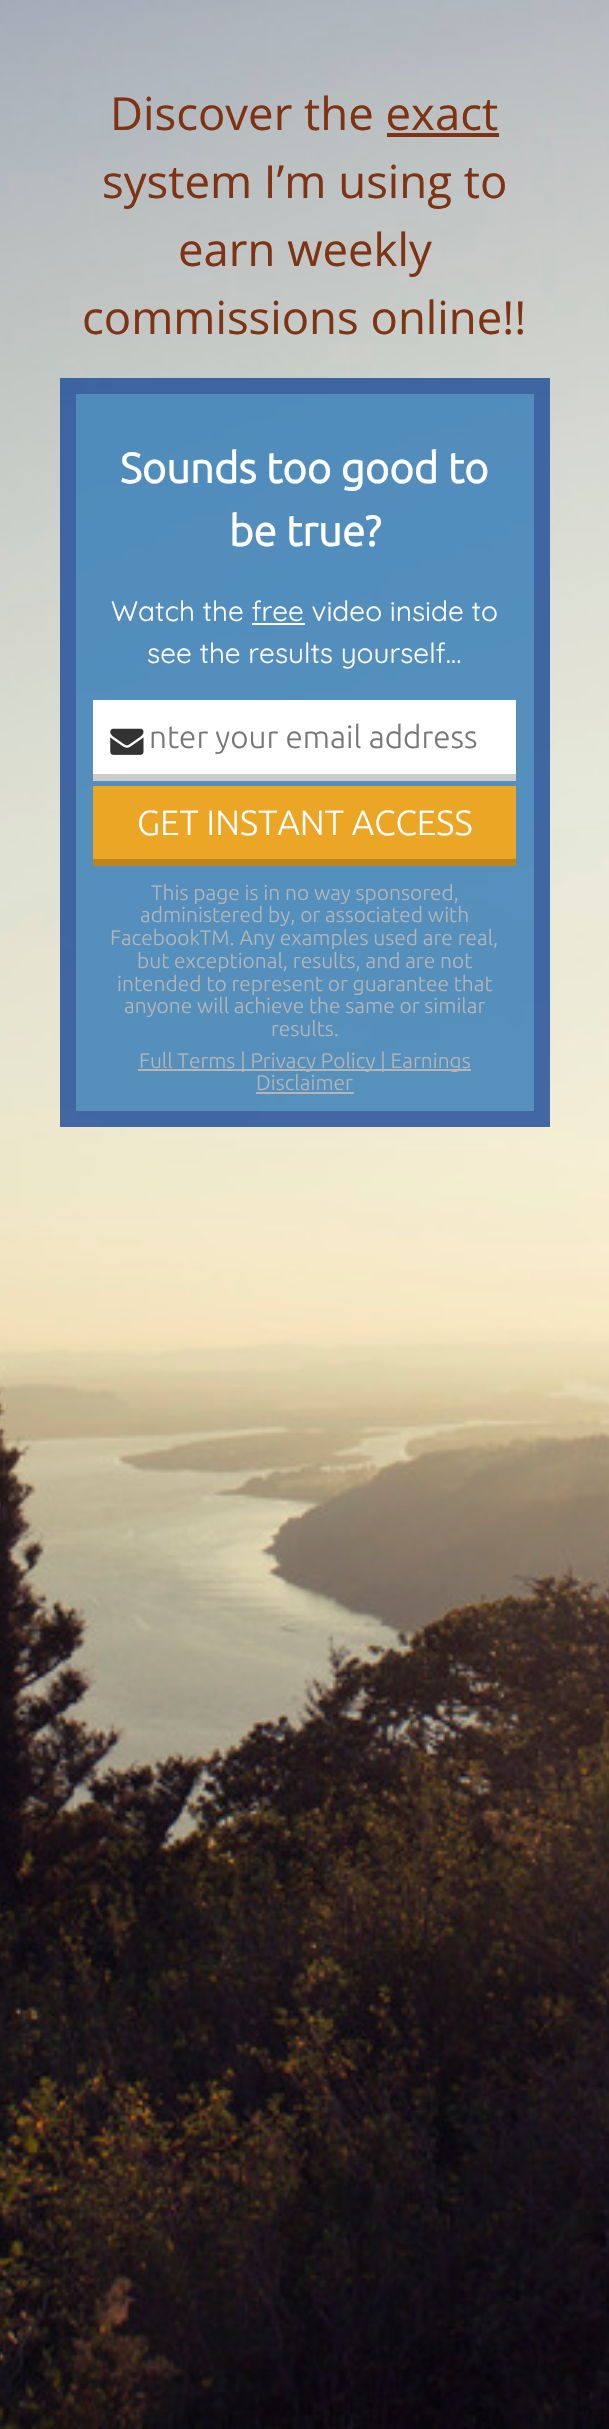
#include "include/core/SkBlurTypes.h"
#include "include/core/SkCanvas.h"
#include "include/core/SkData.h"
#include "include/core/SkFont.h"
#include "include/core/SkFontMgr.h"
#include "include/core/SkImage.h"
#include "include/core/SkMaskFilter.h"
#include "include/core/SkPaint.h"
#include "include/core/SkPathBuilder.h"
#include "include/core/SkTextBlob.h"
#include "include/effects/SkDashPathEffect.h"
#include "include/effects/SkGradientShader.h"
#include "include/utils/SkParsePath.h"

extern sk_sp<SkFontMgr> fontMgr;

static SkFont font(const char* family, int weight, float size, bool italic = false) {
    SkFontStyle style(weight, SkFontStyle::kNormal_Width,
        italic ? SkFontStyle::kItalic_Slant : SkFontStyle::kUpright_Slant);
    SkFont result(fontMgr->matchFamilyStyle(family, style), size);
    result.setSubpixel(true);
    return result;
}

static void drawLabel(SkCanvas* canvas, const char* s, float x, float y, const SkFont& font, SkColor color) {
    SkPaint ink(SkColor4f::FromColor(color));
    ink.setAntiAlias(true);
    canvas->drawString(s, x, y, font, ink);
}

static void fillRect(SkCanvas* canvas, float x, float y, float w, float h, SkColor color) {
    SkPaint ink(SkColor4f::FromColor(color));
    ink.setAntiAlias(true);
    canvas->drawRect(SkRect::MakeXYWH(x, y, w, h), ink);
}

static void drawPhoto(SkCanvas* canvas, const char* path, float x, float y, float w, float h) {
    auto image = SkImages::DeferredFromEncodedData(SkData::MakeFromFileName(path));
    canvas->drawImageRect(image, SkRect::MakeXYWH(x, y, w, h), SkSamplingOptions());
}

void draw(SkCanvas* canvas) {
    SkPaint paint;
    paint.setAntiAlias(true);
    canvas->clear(0xFFFFFFFF);
    drawPhoto(canvas, "assets/img1.png", 0, 0, 609, 2429);
    SkFont font1 = font("Open Sans", 400, 45.5f);
    drawLabel(canvas, "Discover the exact", 110, 130, font1, 0xFF803312);
    fillRect(canvas, 387, 133, 112, 4, 0xFF803312);
    drawLabel(canvas, "system I’m using to", 102, 198, font1, 0xFF803312);
    drawLabel(canvas, "earn weekly", 178, 266, font1, 0xFF803312);
    drawLabel(canvas, "commissions online!!", 82, 334, font1, 0xFF803312);
    fillRect(canvas, 60, 378, 490, 749, 0xD93B80B8);
    paint.setStroke(true);
    paint.setStrokeWidth(16);
    paint.setColor(0x52170F6B);
    canvas->drawRect(SkRect::MakeXYWH(68, 386, 474, 733), paint);
    SkFont font2 = font("Ubuntu", 700, 42);
    drawLabel(canvas, "Sounds too good to", 120, 483, font2, 0xFFFFFFFF);
    drawLabel(canvas, "be true?", 229, 546, font2, 0xFFFFFFFF);
    SkFont font3 = font("Quicksand", 300, 28);
    drawLabel(canvas, "Watch the free video inside to", 111, 621, font3, 0xFFFFFFFF);
    fillRect(canvas, 252, 623, 53, 2, 0xFFFFFFFF);
    drawLabel(canvas, "see the results yourself…", 147, 663, font3, 0xFFFFFFFF);
    fillRect(canvas, 93, 700, 423, 74, 0xFFFFFFFF);
    drawPhoto(canvas, "assets/img2.png", 110, 728, 34, 27);
    fillRect(canvas, 93, 774, 423, 7, 0xFFCCCCCC);
    SkFont font4 = font("Ubuntu", 300, 31.5f);
    drawLabel(canvas, "nter your email address", 149, 748, font4, 0xFF777777);
    fillRect(canvas, 93, 786, 423, 73, 0xFFEBA626);
    fillRect(canvas, 93, 859, 423, 7, 0xFFBC851E);
    SkFont font5 = font("Ubuntu", 300, 35);
    drawLabel(canvas, "GET INSTANT ACCESS", 137, 835, font5, 0xFFFFFFFF);
    SkFont font6 = font("Ubuntu", 300, 21);
    drawLabel(canvas, "This page is in no way sponsored,", 151, 900, font6, 0xFFB5B5B5);
    drawLabel(canvas, "administered by, or associated with", 140, 922, font6, 0xFFB5B5B5);
    drawLabel(canvas, "FacebookTM. Any examples used are real,", 110, 945, font6, 0xFFB5B5B5);
    drawLabel(canvas, "but exceptional, results, and are not", 137, 968, font6, 0xFFB5B5B5);
    drawLabel(canvas, "intended to represent or guarantee that", 117, 991, font6, 0xFFB5B5B5);
    drawLabel(canvas, "anyone will achieve the same or similar", 124, 1013, font6, 0xFFB5B5B5);
    drawLabel(canvas, "results.", 271, 1036, font6, 0xFFB5B5B5);
    fillRect(canvas, 138, 1069, 333, 2, 0xFFB5B5B5);
    drawLabel(canvas, "Full Terms | Privacy Policy | Earnings", 139, 1068, font6, 0xFFB5B5B5);
    drawLabel(canvas, "Disclaimer", 256, 1090, font6, 0xFFB5B5B5);
    fillRect(canvas, 256, 1092, 98, 2, 0xFFB5B5B5);
}
